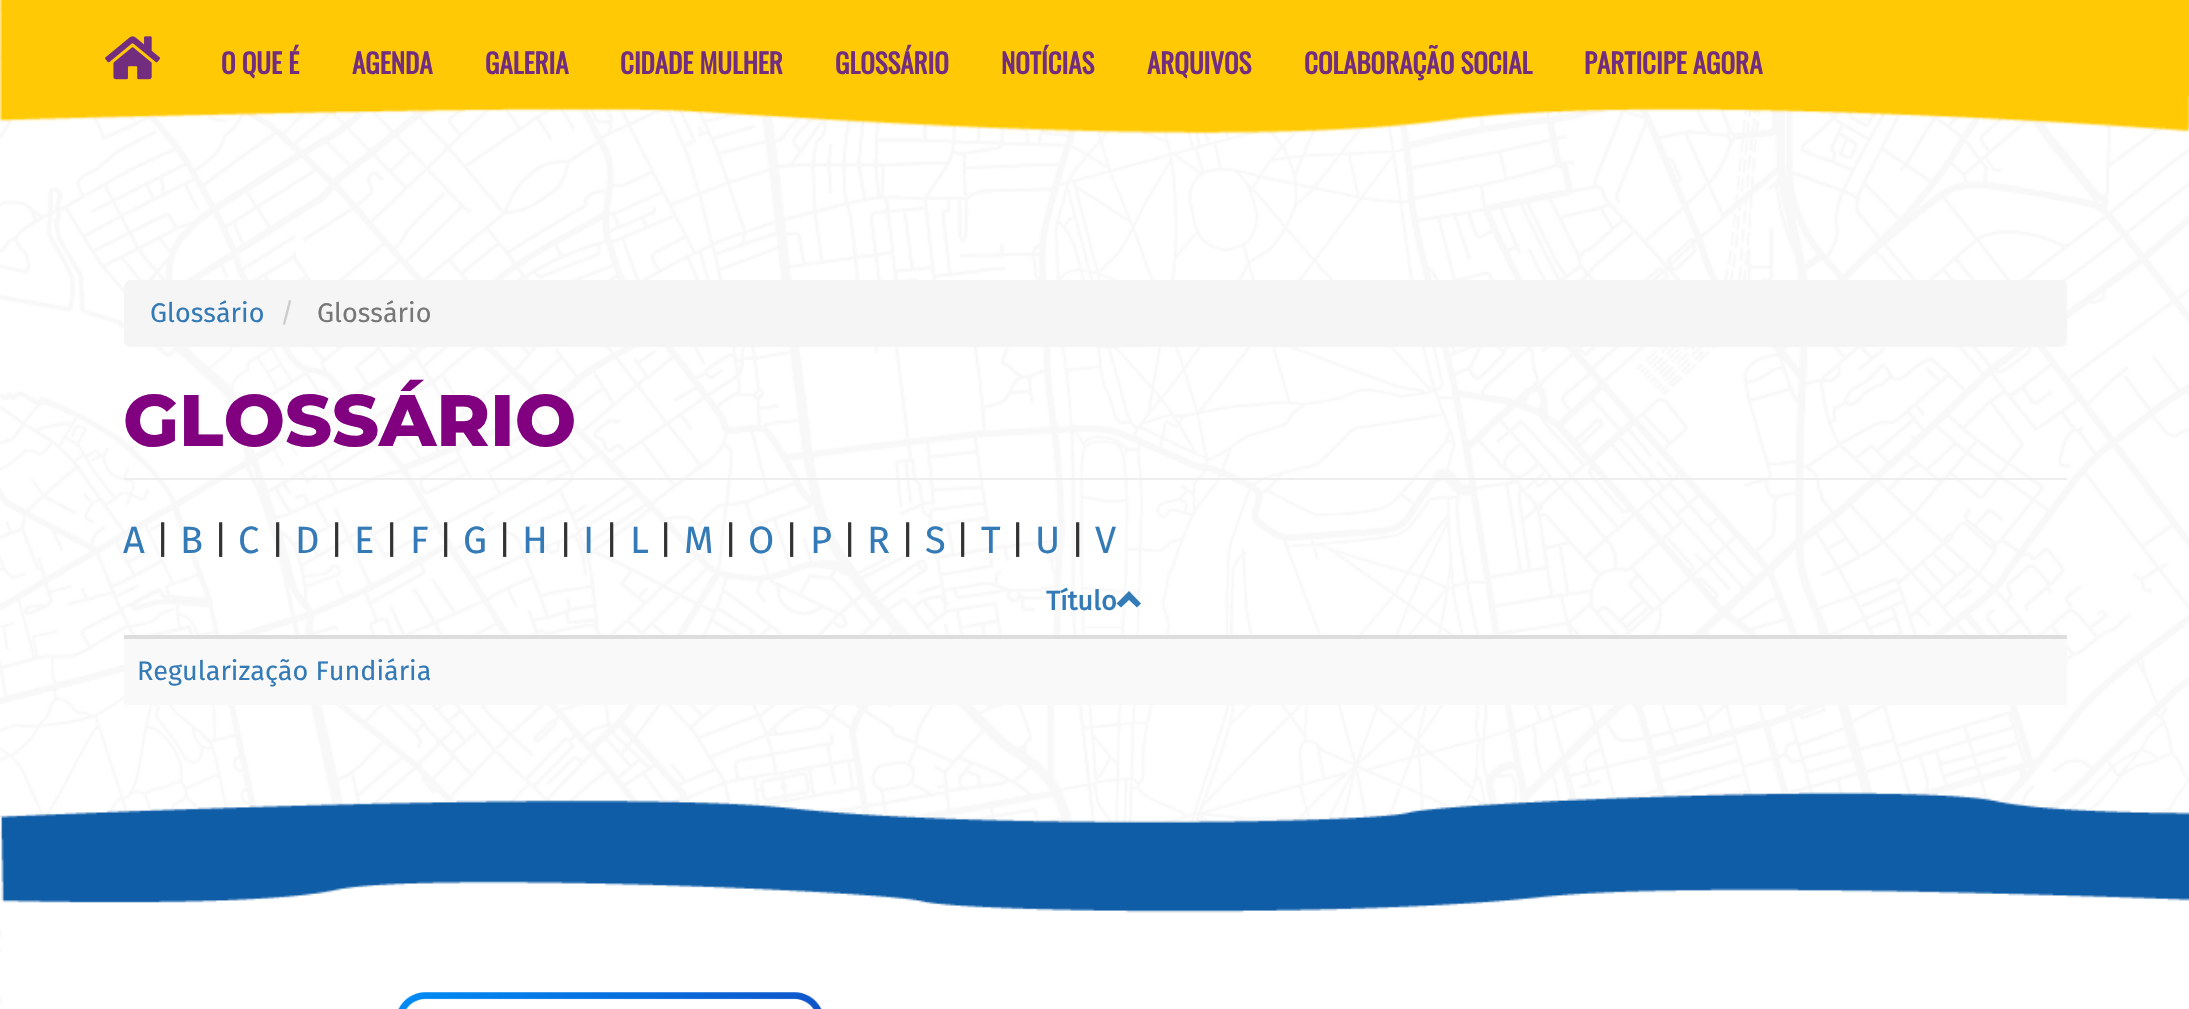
#include "include/core/SkBlurTypes.h"
#include "include/core/SkCanvas.h"
#include "include/core/SkData.h"
#include "include/core/SkFont.h"
#include "include/core/SkFontMgr.h"
#include "include/core/SkImage.h"
#include "include/core/SkMaskFilter.h"
#include "include/core/SkPaint.h"
#include "include/core/SkPathBuilder.h"
#include "include/core/SkTextBlob.h"
#include "include/effects/SkDashPathEffect.h"
#include "include/effects/SkGradientShader.h"
#include "include/utils/SkParsePath.h"

extern sk_sp<SkFontMgr> fontMgr;

static SkFont font(const char* family, int weight, float size, bool italic = false) {
    SkFontStyle style(weight, SkFontStyle::kNormal_Width,
        italic ? SkFontStyle::kItalic_Slant : SkFontStyle::kUpright_Slant);
    SkFont result(fontMgr->matchFamilyStyle(family, style), size);
    result.setSubpixel(true);
    return result;
}

static void drawLabel(SkCanvas* canvas, const char* s, float x, float y, const SkFont& font, SkColor color) {
    SkPaint ink(SkColor4f::FromColor(color));
    ink.setAntiAlias(true);
    canvas->drawString(s, x, y, font, ink);
}

static void fillRect(SkCanvas* canvas, float x, float y, float w, float h, SkColor color) {
    SkPaint ink(SkColor4f::FromColor(color));
    ink.setAntiAlias(true);
    canvas->drawRect(SkRect::MakeXYWH(x, y, w, h), ink);
}

static void fillRRect(SkCanvas* canvas, float x, float y, float w, float h, float radius, SkColor color) {
    SkPaint ink(SkColor4f::FromColor(color));
    ink.setAntiAlias(true);
    canvas->drawRoundRect(SkRect::MakeXYWH(x, y, w, h), radius, radius, ink);
}

static void drawPhoto(SkCanvas* canvas, const char* path, float x, float y, float w, float h) {
    auto image = SkImages::DeferredFromEncodedData(SkData::MakeFromFileName(path));
    canvas->drawImageRect(image, SkRect::MakeXYWH(x, y, w, h), SkSamplingOptions());
}

static SkPath parsePath(const char* data, bool evenOdd = false) {
    SkPath result = *SkParsePath::FromSVGString(data);
    if (evenOdd) result.setFillType(SkPathFillType::kEvenOdd);
    return result;
}

void draw(SkCanvas* canvas) {
    SkPaint paint;
    paint.setAntiAlias(true);
    canvas->clear(0xFFFFFFFF);
    drawPhoto(canvas, "assets/img1.png", 0, 0, 2189, 1009);
    drawPhoto(canvas, "assets/img2.png", 0, 0, 2189, 134);
    drawPhoto(canvas, "assets/img3.png", 105, 36, 56, 44);
    SkFont font1 = font("Oswald", 700, 27);
    drawLabel(canvas, "O QUE É", 221, 74, font1, 0xFF722D7E);
    drawLabel(canvas, "AGENDA", 352, 74, font1, 0xFF722D7E);
    drawLabel(canvas, "GALERIA", 485, 74, font1, 0xFF722D7E);
    drawLabel(canvas, "CIDADE MULHER", 620, 74, font1, 0xFF722D7E);
    drawLabel(canvas, "GLOSSÁRIO", 835, 74, font1, 0xFF722D7E);
    drawLabel(canvas, "NOTÍCIAS", 1001, 74, font1, 0xFF722D7E);
    drawLabel(canvas, "ARQUIVOS", 1147, 74, font1, 0xFF722D7E);
    drawLabel(canvas, "COLABORAÇÃO SOCIAL", 1304, 74, font1, 0xFF722D7E);
    drawLabel(canvas, "PARTICIPE AGORA", 1584, 74, font1, 0xFF722D7E);
    fillRRect(canvas, 124, 280, 1943, 67, 7, 0xFFF5F5F5);
    SkFont font2 = font("Fira Sans", 400, 27);
    drawLabel(canvas, "Glossário", 150, 322, font2, 0xFF337AB7);
    drawLabel(canvas, "/", 280, 322, font2, 0xFFCCCCCC);
    drawLabel(canvas, "Glossário", 317, 322, font2, 0xFF777777);
    fillRect(canvas, 124, 478, 1943, 2, 0xFFEEEEEE);
    SkFont font3 = font("Montserrat", 800, 72.75f);
    drawLabel(canvas, "GLOSSÁRIO", 123, 446, font3, 0xFF800080);
    SkFont font4 = font("Fira Sans", 400, 38);
    drawLabel(canvas, "A", 123, 553, font4, 0xFF337AB7);
    drawLabel(canvas, "|", 155, 553, font4, 0xFF333333);
    drawLabel(canvas, "B", 180, 553, font4, 0xFF337AB7);
    drawLabel(canvas, "|", 213, 553, font4, 0xFF333333);
    drawLabel(canvas, "C", 238, 553, font4, 0xFF337AB7);
    drawLabel(canvas, "|", 270, 553, font4, 0xFF333333);
    drawLabel(canvas, "D", 295, 553, font4, 0xFF337AB7);
    drawLabel(canvas, "|", 329, 553, font4, 0xFF333333);
    drawLabel(canvas, "E", 354, 553, font4, 0xFF337AB7);
    drawLabel(canvas, "|", 384, 553, font4, 0xFF333333);
    drawLabel(canvas, "F", 410, 553, font4, 0xFF337AB7);
    drawLabel(canvas, "|", 438, 553, font4, 0xFF333333);
    drawLabel(canvas, "G", 463, 553, font4, 0xFF337AB7);
    drawLabel(canvas, "|", 497, 553, font4, 0xFF333333);
    drawLabel(canvas, "H", 522, 553, font4, 0xFF337AB7);
    drawLabel(canvas, "|", 558, 553, font4, 0xFF333333);
    drawLabel(canvas, "I", 583, 553, font4, 0xFF337AB7);
    drawLabel(canvas, "|", 604, 553, font4, 0xFF333333);
    drawLabel(canvas, "L", 630, 553, font4, 0xFF337AB7);
    drawLabel(canvas, "|", 658, 553, font4, 0xFF333333);
    drawLabel(canvas, "M", 684, 553, font4, 0xFF337AB7);
    drawLabel(canvas, "|", 723, 553, font4, 0xFF333333);
    drawLabel(canvas, "O", 748, 553, font4, 0xFF337AB7);
    drawLabel(canvas, "|", 784, 553, font4, 0xFF333333);
    drawLabel(canvas, "P", 810, 553, font4, 0xFF337AB7);
    drawLabel(canvas, "|", 842, 553, font4, 0xFF333333);
    drawLabel(canvas, "R", 867, 553, font4, 0xFF337AB7);
    drawLabel(canvas, "|", 900, 553, font4, 0xFF333333);
    drawLabel(canvas, "S", 925, 553, font4, 0xFF337AB7);
    drawLabel(canvas, "|", 955, 553, font4, 0xFF333333);
    drawLabel(canvas, "T", 981, 553, font4, 0xFF337AB7);
    drawLabel(canvas, "|", 1010, 553, font4, 0xFF333333);
    drawLabel(canvas, "U", 1035, 553, font4, 0xFF337AB7);
    drawLabel(canvas, "|", 1070, 553, font4, 0xFF333333);
    drawLabel(canvas, "V", 1095, 553, font4, 0xFF337AB7);
    fillRect(canvas, 124, 635, 1943, 4, 0xFFDDDDDD);
    SkFont font5 = font("Fira Sans", 700, 27);
    drawLabel(canvas, "Título", 1046, 610, font5, 0xFF337AB7);
    paint.setColor(0xFF337AB7);
    canvas->drawPath(parsePath("M1141 603.5L1137 607.5L1129 600L1121 607.5L1116.5 603.5L1129 591Z"), paint);
    fillRect(canvas, 124, 639, 1943, 66, 0xFFF9F9F9);
    drawLabel(canvas, "Regularização Fundiária", 137, 680, font2, 0xFF337AB7);
    drawPhoto(canvas, "assets/img4.png", 0, 792, 2189, 217);
    drawPhoto(canvas, "assets/img5.png", 398, 992, 424, 17);
}
